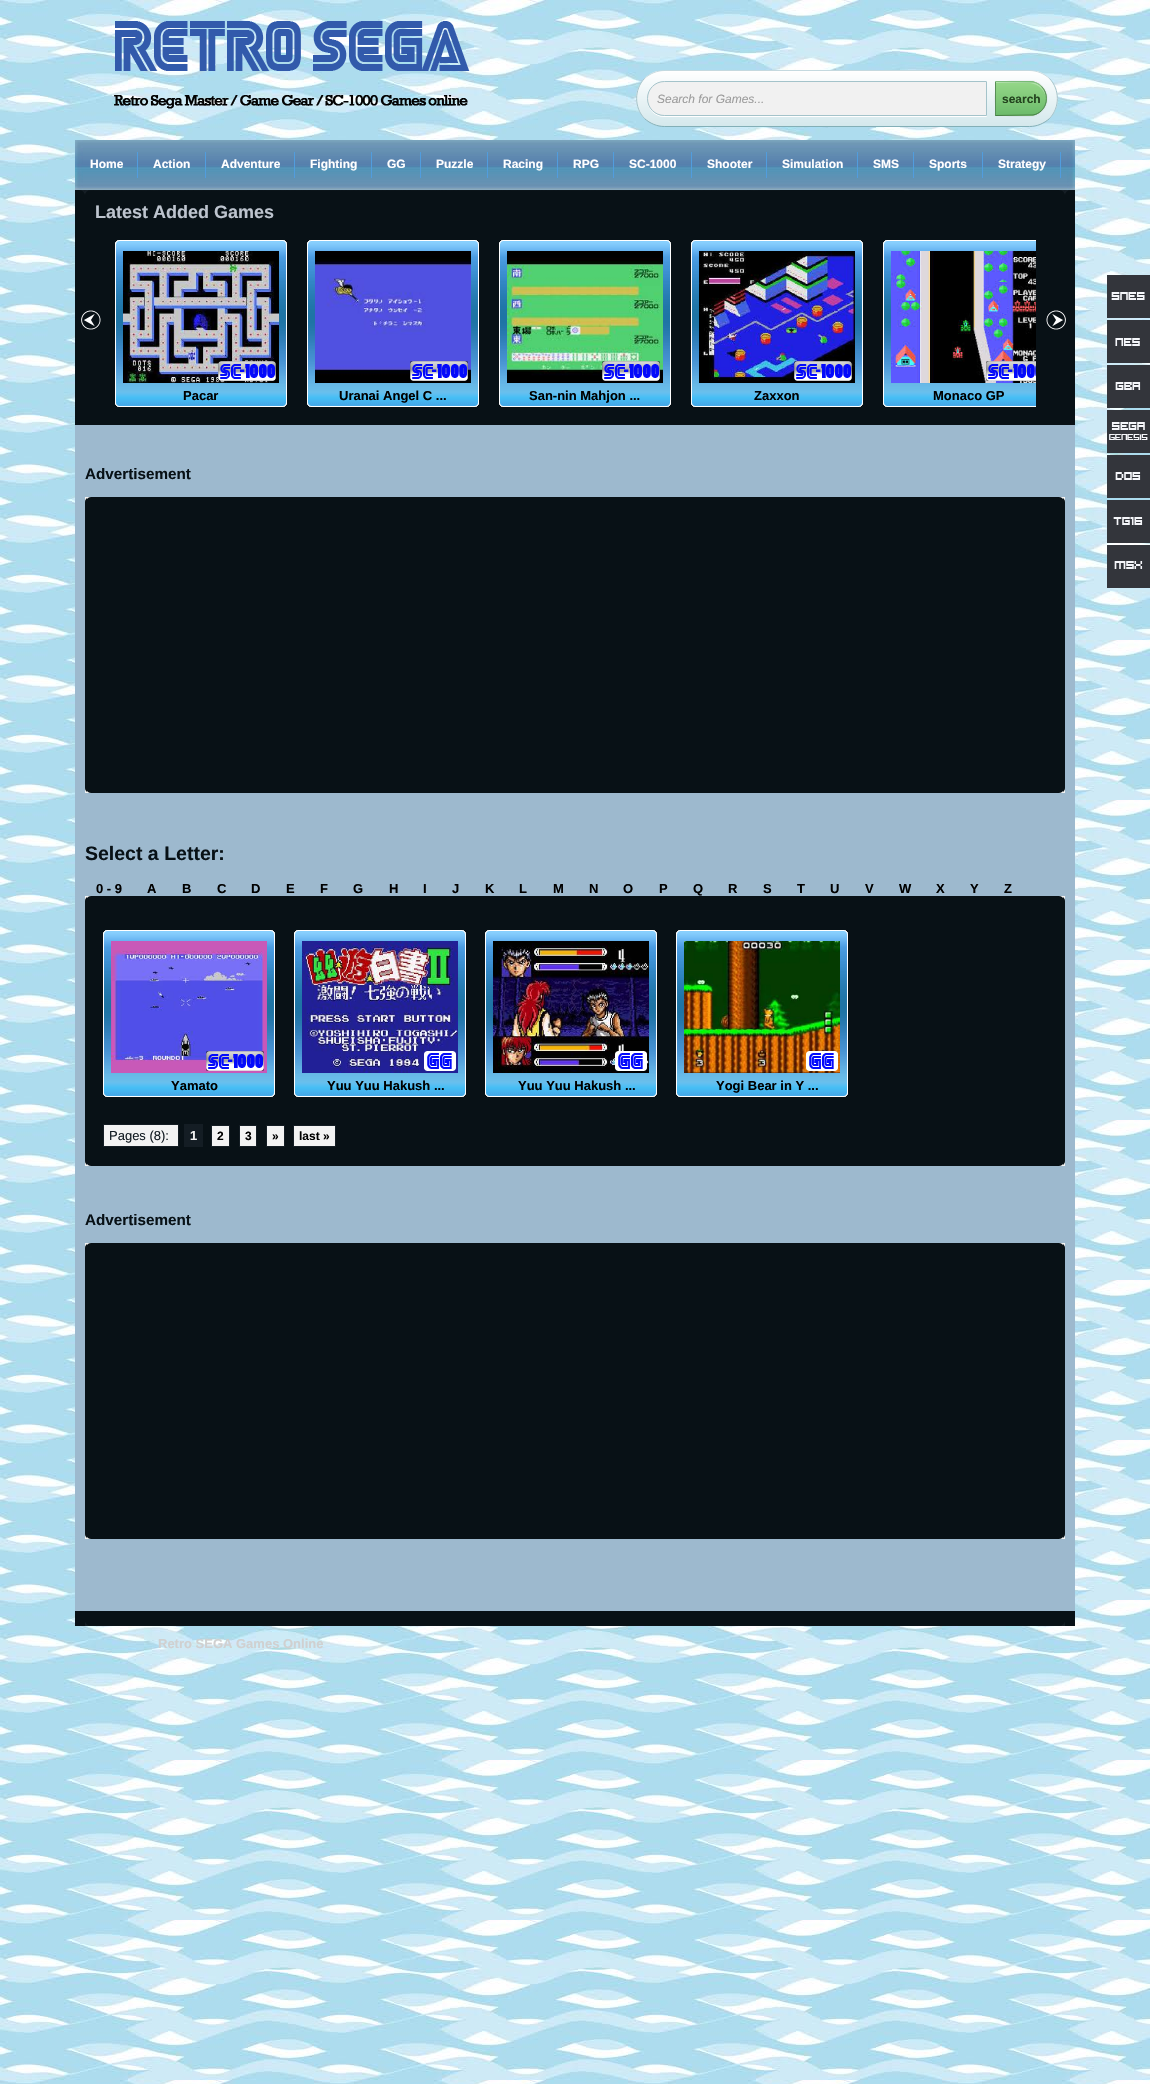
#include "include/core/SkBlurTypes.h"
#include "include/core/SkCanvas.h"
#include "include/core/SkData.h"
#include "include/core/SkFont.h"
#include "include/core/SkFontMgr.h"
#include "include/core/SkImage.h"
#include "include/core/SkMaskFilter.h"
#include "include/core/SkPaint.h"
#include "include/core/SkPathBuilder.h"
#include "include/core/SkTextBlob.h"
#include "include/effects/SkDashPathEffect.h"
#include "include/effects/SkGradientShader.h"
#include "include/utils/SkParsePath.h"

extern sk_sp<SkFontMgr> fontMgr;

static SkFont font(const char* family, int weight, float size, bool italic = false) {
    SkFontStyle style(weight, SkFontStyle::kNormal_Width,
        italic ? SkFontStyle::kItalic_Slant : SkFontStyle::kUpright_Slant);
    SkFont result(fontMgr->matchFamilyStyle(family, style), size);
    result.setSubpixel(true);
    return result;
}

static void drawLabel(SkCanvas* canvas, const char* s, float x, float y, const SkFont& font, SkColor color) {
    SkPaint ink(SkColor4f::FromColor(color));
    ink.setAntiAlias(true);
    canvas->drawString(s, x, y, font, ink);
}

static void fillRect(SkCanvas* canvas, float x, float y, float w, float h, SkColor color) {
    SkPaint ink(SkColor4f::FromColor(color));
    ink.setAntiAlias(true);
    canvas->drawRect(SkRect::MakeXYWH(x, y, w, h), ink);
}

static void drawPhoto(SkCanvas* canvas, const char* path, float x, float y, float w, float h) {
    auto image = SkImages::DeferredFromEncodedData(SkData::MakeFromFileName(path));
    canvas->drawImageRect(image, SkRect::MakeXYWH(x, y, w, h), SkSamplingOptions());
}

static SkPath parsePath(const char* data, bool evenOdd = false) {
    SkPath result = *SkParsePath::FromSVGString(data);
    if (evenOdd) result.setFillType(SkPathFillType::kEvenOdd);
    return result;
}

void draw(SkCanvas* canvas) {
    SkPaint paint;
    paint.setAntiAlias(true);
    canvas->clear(0xFFFFFFFF);
    drawPhoto(canvas, "assets/img1.png", 0, 0, 1150, 2084);
    drawPhoto(canvas, "assets/img2.png", 114, 21, 356, 88);
    canvas->save();
    canvas->clipPath(parsePath("M664.5 70H1029.5C1045 70 1058 83 1058 98.5C1058 114 1045 127 1029.5 127H664.5C649 127 636 114 636 98.5C636 83 649 70 664.5 70Z"), true);
    {
        const SkColor colors[] = {0xFFD4E8EC, 0xFFFFFFFF};
        const float stops[] = {0, 1};
        const SkPoint ends[] = {{637, 126}, {637, 71}};
        paint.setShader(SkGradientShader::MakeLinear(ends, colors, stops, 2, SkTileMode::kClamp));
        paint.setAlpha(255);
    }
    canvas->drawRect(SkRect::MakeXYWH(636, 71, 422, 55), paint);
    canvas->restore();
    paint.setStroke(true);
    paint.setStrokeWidth(1);
    paint.setShader(nullptr);
    paint.setColor(0xFFC4D9DF);
    canvas->drawPath(parsePath("M644.5 78.5C650 73.5 657 70.5 664.5 70.5H1029.5C1037 70.5 1044 73.5 1049.5 78.5"), paint);
    paint.setColor(0xFFA4C3CA);
    canvas->drawPath(parsePath("M1049.5 78.5C1060 89.5 1060 107.5 1049.5 118.5"), paint);
    paint.setColor(0xFF83AFB7);
    canvas->drawPath(parsePath("M1049.5 118.5C1044 123.5 1037 126.5 1029.5 126.5H664.5C657 126.5 650 123.5 644.5 118.5"), paint);
    paint.setColor(0xFFA4C3CA);
    canvas->drawPath(parsePath("M644.5 118.5C634 107.5 634 89.5 644.5 78.5"), paint);
    paint.setStroke(false);
    paint.setColor(0xFFFFFFFF);
    canvas->drawPath(parsePath("M647 99C647 109 655 117 664 117H986C987 117 987 116 987 115C987 116 987 116 986 116H664C655 116 647 108 647 99Z"), paint);
    paint.setColor(0xFFF1F1F1);
    canvas->drawPath(parsePath("M664.5 81.5H986C986.5 81.5 986.5 81.5 986.5 82V115C986.5 115.5 986.5 115.5 986 115.5H664.5C655 115.5 647.5 108 647.5 98.5C647.5 89 655 81.5 664.5 81.5Z"), paint);
    paint.setStroke(true);
    paint.setColor(0xFFA4C3CA);
    canvas->drawPath(parsePath("M664.5 81.5H986C986.5 81.5 986.5 81.5 986.5 82V115C986.5 115.5 986.5 115.5 986 115.5H664.5C655 115.5 647.5 108 647.5 98.5C647.5 89 655 81.5 664.5 81.5Z"), paint);
    SkFont font1 = font("Liberation Sans", 400, 12, true);
    drawLabel(canvas, "Search for Games...", 657, 103, font1, 0xFF9C9C9C);
    paint.setStroke(false);
    paint.setColor(0x4D000000);
    paint.setMaskFilter(SkMaskFilter::MakeBlur(kNormal_SkBlurStyle, 0.5f));
    canvas->drawRoundRect(SkRect::MakeXYWH(995, 81, 52, 35), 17.5f, 17.5f, paint);
    paint.setMaskFilter(nullptr);
    canvas->save();
    canvas->clipPath(parsePath("M996 81H1029.5C1039 81 1047 89 1047 98.5C1047 108 1039 116 1029.5 116H996C995.5 116 995 115.5 995 115V82C995 81.5 995.5 81 996 81Z"), true);
    {
        const SkColor colors[] = {0xFF6CBB6B, 0xFF95D788};
        const float stops[] = {0, 1};
        const SkPoint ends[] = {{996, 82}, {996, 49}};
        paint.setShader(SkGradientShader::MakeLinear(ends, colors, stops, 2, SkTileMode::kClamp));
        paint.setAlpha(255);
    }
    canvas->drawPath(parsePath("M996 81H1047V82H995C995 81.5 995.5 81 996 81Z"), paint);
    {
        const SkColor colors[] = {0xFF6CBB6B, 0xFF95D788};
        const float stops[] = {0, 1};
        const SkPoint ends[] = {{996, 115}, {996, 82}};
        paint.setShader(SkGradientShader::MakeLinear(ends, colors, stops, 2, SkTileMode::kClamp));
        paint.setAlpha(255);
    }
    canvas->drawRect(SkRect::MakeXYWH(996, 82, 51, 33), paint);
    {
        const SkColor colors[] = {0xFF6CBB6B, 0xFF95D788};
        const float stops[] = {0, 1};
        const SkPoint ends[] = {{996, 148}, {996, 115}};
        paint.setShader(SkGradientShader::MakeLinear(ends, colors, stops, 2, SkTileMode::kClamp));
        paint.setAlpha(255);
    }
    canvas->drawPath(parsePath("M995 115H1047V116H996C995.5 116 995 115.5 995 115Z"), paint);
    canvas->restore();
    paint.setShader(nullptr);
    paint.setColor(0x4DFFFFFF);
    canvas->drawPath(parsePath("M996 83H1030C1039 84 1045 91 1046 98C1046 89 1039 82 1030 82H996Z"), paint);
    paint.setStroke(true);
    paint.setColor(0xFF7EBA7C);
    canvas->drawPath(parsePath("M995.5 81.5L1033 82C1036 82.5 1039 84 1041.5 86.5"), paint);
    paint.setColor(0xFF578E57);
    canvas->drawPath(parsePath("M1041.5 86.5C1048 93 1048 104 1041.5 110.5"), paint);
    paint.setColor(0xFF447D43);
    canvas->drawPath(parsePath("M1041.5 110.5C1039 113 1036 114.5 1033 115L995.5 115.5"), paint);
    fillRect(canvas, 995, 82, 1, 34, 0xFF578E57);
    SkFont font2 = font("Liberation Sans", 700, 12);
    drawLabel(canvas, "search", 1002, 103, font2, 0xFF23441E);
    drawPhoto(canvas, "assets/img3.png", 75, 140, 1000, 50);
    fillRect(canvas, 137, 152, 1, 26, 0xFF519DDE);
    drawLabel(canvas, "Home", 90, 168, font2, 0xFFFFFFFF);
    fillRect(canvas, 205, 152, 1, 26, 0xFF519DDE);
    drawLabel(canvas, "Action", 153, 168, font2, 0xFFFFFFFF);
    fillRect(canvas, 294, 152, 1, 26, 0xFF519DDE);
    drawLabel(canvas, "Adventure", 221, 168, font2, 0xFFFFFFFF);
    fillRect(canvas, 371, 152, 1, 26, 0xFF519DDE);
    drawLabel(canvas, "Fighting", 310, 168, font2, 0xFFFFFFFF);
    fillRect(canvas, 420, 152, 1, 26, 0xFF519DDE);
    drawLabel(canvas, "GG", 387, 168, font2, 0xFFFFFFFF);
    fillRect(canvas, 487, 152, 1, 26, 0xFF519DDE);
    drawLabel(canvas, "Puzzle", 436, 168, font2, 0xFFFFFFFF);
    fillRect(canvas, 557, 152, 1, 26, 0xFF519DDE);
    drawLabel(canvas, "Racing", 503, 168, font2, 0xFFFFFFFF);
    fillRect(canvas, 613, 152, 1, 26, 0xFF519DDE);
    drawLabel(canvas, "RPG", 573, 168, font2, 0xFFFFFFFF);
    fillRect(canvas, 691, 152, 1, 26, 0xFF519DDE);
    drawLabel(canvas, "SC-1000", 629, 168, font2, 0xFFFFFFFF);
    fillRect(canvas, 766, 152, 1, 26, 0xFF519DDE);
    drawLabel(canvas, "Shooter", 707, 168, font2, 0xFFFFFFFF);
    fillRect(canvas, 857, 152, 1, 26, 0xFF519DDE);
    drawLabel(canvas, "Simulation", 782, 168, font2, 0xFFFFFFFF);
    fillRect(canvas, 913, 152, 1, 26, 0xFF519DDE);
    drawLabel(canvas, "SMS", 873, 168, font2, 0xFFFFFFFF);
    fillRect(canvas, 982, 152, 1, 26, 0xFF519DDE);
    drawLabel(canvas, "Sports", 929, 168, font2, 0xFFFFFFFF);
    fillRect(canvas, 1060, 152, 1, 26, 0xFF519DDE);
    drawLabel(canvas, "Strategy", 998, 168, font2, 0xFFFFFFFF);
    drawPhoto(canvas, "assets/img4.png", 75, 190, 1000, 43);
    SkFont font3 = font("Liberation Sans", 700, 18);
    drawLabel(canvas, "Latest Added Games", 95, 218, font3, 0xFFBDC4CE);
    fillRect(canvas, 75, 233, 1000, 192, 0xFF081116);
    drawPhoto(canvas, "assets/img5.png", 115, 240, 172, 167);
    drawPhoto(canvas, "assets/img6.png", 123, 251, 156, 132);
    drawPhoto(canvas, "assets/img7.png", 218, 361, 58, 20);
    SkFont font4 = font("Liberation Sans", 700, 13);
    drawLabel(canvas, "Pacar", 183, 400, font4, 0xFF000000);
    drawPhoto(canvas, "assets/img5.png", 307, 240, 172, 167);
    drawPhoto(canvas, "assets/img8.png", 315, 251, 156, 132);
    drawPhoto(canvas, "assets/img9.png", 410, 361, 58, 20);
    drawLabel(canvas, "Uranai Angel C ...", 339, 400, font4, 0xFF000000);
    drawPhoto(canvas, "assets/img5.png", 499, 240, 172, 167);
    drawPhoto(canvas, "assets/img10.png", 507, 251, 156, 132);
    drawPhoto(canvas, "assets/img11.png", 602, 361, 58, 20);
    drawLabel(canvas, "San-nin Mahjon ...", 529, 400, font4, 0xFF000000);
    drawPhoto(canvas, "assets/img5.png", 691, 240, 172, 167);
    drawPhoto(canvas, "assets/img12.png", 699, 251, 156, 132);
    drawPhoto(canvas, "assets/img13.png", 794, 361, 58, 20);
    drawLabel(canvas, "Zaxxon", 754, 400, font4, 0xFF000000);
    drawPhoto(canvas, "assets/img14.png", 883, 240, 153, 167);
    drawPhoto(canvas, "assets/img15.png", 891, 251, 145, 132);
    drawPhoto(canvas, "assets/img16.png", 986, 361, 50, 20);
    drawLabel(canvas, "Monaco GP", 933, 400, font4, 0xFF000000);
    fillRect(canvas, 75, 425, 1000, 1186, 0xFF9DB9CE);
    SkFont font5 = font("Liberation Sans", 700, 15.25f);
    drawLabel(canvas, "Advertisement", 85, 479, font5, 0xFF081116);
    drawPhoto(canvas, "assets/img17.png", 85, 497, 980, 8);
    fillRect(canvas, 85, 505, 980, 283, 0xFF081116);
    drawPhoto(canvas, "assets/img18.png", 85, 788, 980, 5);
    SkFont font6 = font("Liberation Sans", 700, 19.5f);
    drawLabel(canvas, "Select a Letter:", 85, 860, font6, 0xFF081116);
    drawLabel(canvas, "0 - 9", 96, 893, font4, 0xFF000000);
    drawLabel(canvas, "A", 147, 893, font4, 0xFF000000);
    drawLabel(canvas, "B", 182, 893, font4, 0xFF000000);
    drawLabel(canvas, "C", 217, 893, font4, 0xFF000000);
    drawLabel(canvas, "D", 251, 893, font4, 0xFF000000);
    drawLabel(canvas, "E", 286, 893, font4, 0xFF000000);
    drawLabel(canvas, "F", 320, 893, font4, 0xFF000000);
    drawLabel(canvas, "G", 353, 893, font4, 0xFF000000);
    drawLabel(canvas, "H", 389, 893, font4, 0xFF000000);
    drawLabel(canvas, "I", 423, 893, font4, 0xFF000000);
    drawLabel(canvas, "J", 452, 893, font4, 0xFF000000);
    drawLabel(canvas, "K", 485, 893, font4, 0xFF000000);
    drawLabel(canvas, "L", 519, 893, font4, 0xFF000000);
    drawLabel(canvas, "M", 553, 893, font4, 0xFF000000);
    drawLabel(canvas, "N", 589, 893, font4, 0xFF000000);
    drawLabel(canvas, "O", 623, 893, font4, 0xFF000000);
    drawLabel(canvas, "P", 659, 893, font4, 0xFF000000);
    drawLabel(canvas, "Q", 693, 893, font4, 0xFF000000);
    drawLabel(canvas, "R", 728, 893, font4, 0xFF000000);
    drawLabel(canvas, "S", 763, 893, font4, 0xFF000000);
    drawLabel(canvas, "T", 797, 893, font4, 0xFF000000);
    drawLabel(canvas, "U", 830, 893, font4, 0xFF000000);
    drawLabel(canvas, "V", 865, 893, font4, 0xFF000000);
    drawLabel(canvas, "W", 899, 893, font4, 0xFF000000);
    drawLabel(canvas, "X", 936, 893, font4, 0xFF000000);
    drawLabel(canvas, "Y", 970, 893, font4, 0xFF000000);
    drawLabel(canvas, "Z", 1004, 893, font4, 0xFF000000);
    fillRect(canvas, 85, 901, 980, 260, 0xFF081116);
    drawPhoto(canvas, "assets/img19.png", 85, 896, 980, 5);
    drawPhoto(canvas, "assets/img18.png", 85, 1161, 980, 5);
    drawPhoto(canvas, "assets/img5.png", 103, 930, 172, 167);
    drawPhoto(canvas, "assets/img20.png", 111, 941, 156, 132);
    drawPhoto(canvas, "assets/img21.png", 206, 1051, 58, 20);
    drawLabel(canvas, "Yamato", 171, 1090, font4, 0xFF000000);
    drawPhoto(canvas, "assets/img5.png", 294, 930, 172, 167);
    drawPhoto(canvas, "assets/img22.png", 302, 941, 156, 132);
    drawPhoto(canvas, "assets/img23.png", 424, 1051, 32, 20);
    drawLabel(canvas, "Yuu Yuu Hakush ...", 327, 1090, font4, 0xFF000000);
    drawPhoto(canvas, "assets/img5.png", 485, 930, 172, 167);
    drawPhoto(canvas, "assets/img24.png", 493, 941, 156, 132);
    drawPhoto(canvas, "assets/img25.png", 615, 1051, 32, 20);
    drawLabel(canvas, "Yuu Yuu Hakush ...", 518, 1090, font4, 0xFF000000);
    drawPhoto(canvas, "assets/img5.png", 676, 930, 172, 167);
    drawPhoto(canvas, "assets/img26.png", 684, 941, 156, 132);
    drawPhoto(canvas, "assets/img27.png", 806, 1051, 32, 20);
    drawLabel(canvas, "Yogi Bear in Y ...", 716, 1090, font4, 0xFF000000);
    paint.setStroke(false);
    paint.setColor(0xFFF3F3F3);
    canvas->drawRect(SkRect::MakeXYWH(103.5f, 1124.5f, 75, 22), paint);
    paint.setStroke(true);
    paint.setColor(0xFF141D24);
    canvas->drawRect(SkRect::MakeXYWH(103.5f, 1124.5f, 75, 22), paint);
    SkFont font7 = font("Liberation Sans", 400, 13);
    drawLabel(canvas, "Pages (8):", 109, 1140, font7, 0xFF141D24);
    fillRect(canvas, 184, 1124, 19, 23, 0xFF141D24);
    drawLabel(canvas, "1", 190, 1140, font4, 0xFFF3F3F3);
    paint.setStroke(false);
    paint.setColor(0xFFF3F3F3);
    canvas->drawRect(SkRect::MakeXYWH(211.5f, 1125.5f, 18, 21), paint);
    paint.setStroke(true);
    paint.setColor(0xFF141D24);
    canvas->drawRect(SkRect::MakeXYWH(211.5f, 1125.5f, 18, 21), paint);
    drawLabel(canvas, "2", 217, 1140, font2, 0xFF000000);
    paint.setStroke(false);
    paint.setColor(0xFFF3F3F3);
    canvas->drawRect(SkRect::MakeXYWH(239.5f, 1125.5f, 17, 21), paint);
    paint.setStroke(true);
    paint.setColor(0xFF141D24);
    canvas->drawRect(SkRect::MakeXYWH(239.5f, 1125.5f, 17, 21), paint);
    drawLabel(canvas, "3", 245, 1140, font2, 0xFF000000);
    paint.setStroke(false);
    paint.setColor(0xFFF3F3F3);
    canvas->drawRect(SkRect::MakeXYWH(266.5f, 1125.5f, 18, 21), paint);
    paint.setStroke(true);
    paint.setColor(0xFF141D24);
    canvas->drawRect(SkRect::MakeXYWH(266.5f, 1125.5f, 18, 21), paint);
    drawLabel(canvas, "»", 272, 1140, font2, 0xFF000000);
    paint.setStroke(false);
    paint.setColor(0xFFF3F3F3);
    canvas->drawRect(SkRect::MakeXYWH(293.5f, 1125.5f, 42, 21), paint);
    paint.setStroke(true);
    paint.setColor(0xFF141D24);
    canvas->drawRect(SkRect::MakeXYWH(293.5f, 1125.5f, 42, 21), paint);
    drawLabel(canvas, "last »", 299, 1140, font2, 0xFF000000);
    drawLabel(canvas, "Advertisement", 85, 1225, font5, 0xFF081116);
    drawPhoto(canvas, "assets/img17.png", 85, 1243, 980, 8);
    fillRect(canvas, 85, 1251, 980, 283, 0xFF081116);
    drawPhoto(canvas, "assets/img18.png", 85, 1534, 980, 5);
    fillRect(canvas, 1107, 275, 43, 43, 0xFF33353B);
    drawPhoto(canvas, "assets/img28.png", 1111, 292, 34, 8);
    fillRect(canvas, 1107, 320, 43, 43, 0xFF33353B);
    drawPhoto(canvas, "assets/img29.png", 1115, 338, 25, 8);
    fillRect(canvas, 1107, 365, 43, 43, 0xFF33353B);
    drawPhoto(canvas, "assets/img30.png", 1115, 382, 26, 8);
    fillRect(canvas, 1107, 410, 43, 43, 0xFF33353B);
    drawPhoto(canvas, "assets/img31.png", 1109, 422, 39, 18);
    fillRect(canvas, 1107, 455, 43, 43, 0xFF33353B);
    drawPhoto(canvas, "assets/img32.png", 1115, 472, 26, 8);
    fillRect(canvas, 1107, 500, 43, 43, 0xFF33353B);
    drawPhoto(canvas, "assets/img33.png", 1113, 517, 30, 8);
    fillRect(canvas, 1107, 545, 43, 43, 0xFF33353B);
    drawPhoto(canvas, "assets/img34.png", 1114, 561, 29, 8);
    drawPhoto(canvas, "assets/img35.png", 81, 310, 20, 20);
    drawPhoto(canvas, "assets/img36.png", 1046, 310, 20, 20);
    fillRect(canvas, 75, 1611, 1000, 15, 0xFF081116);
    drawPhoto(canvas, "assets/img37.png", 85, 1622, 980, 4);
    drawLabel(canvas, "Retro SEGA Games Online", 158, 1648, font4, 0xFFD0D0D0);
}
